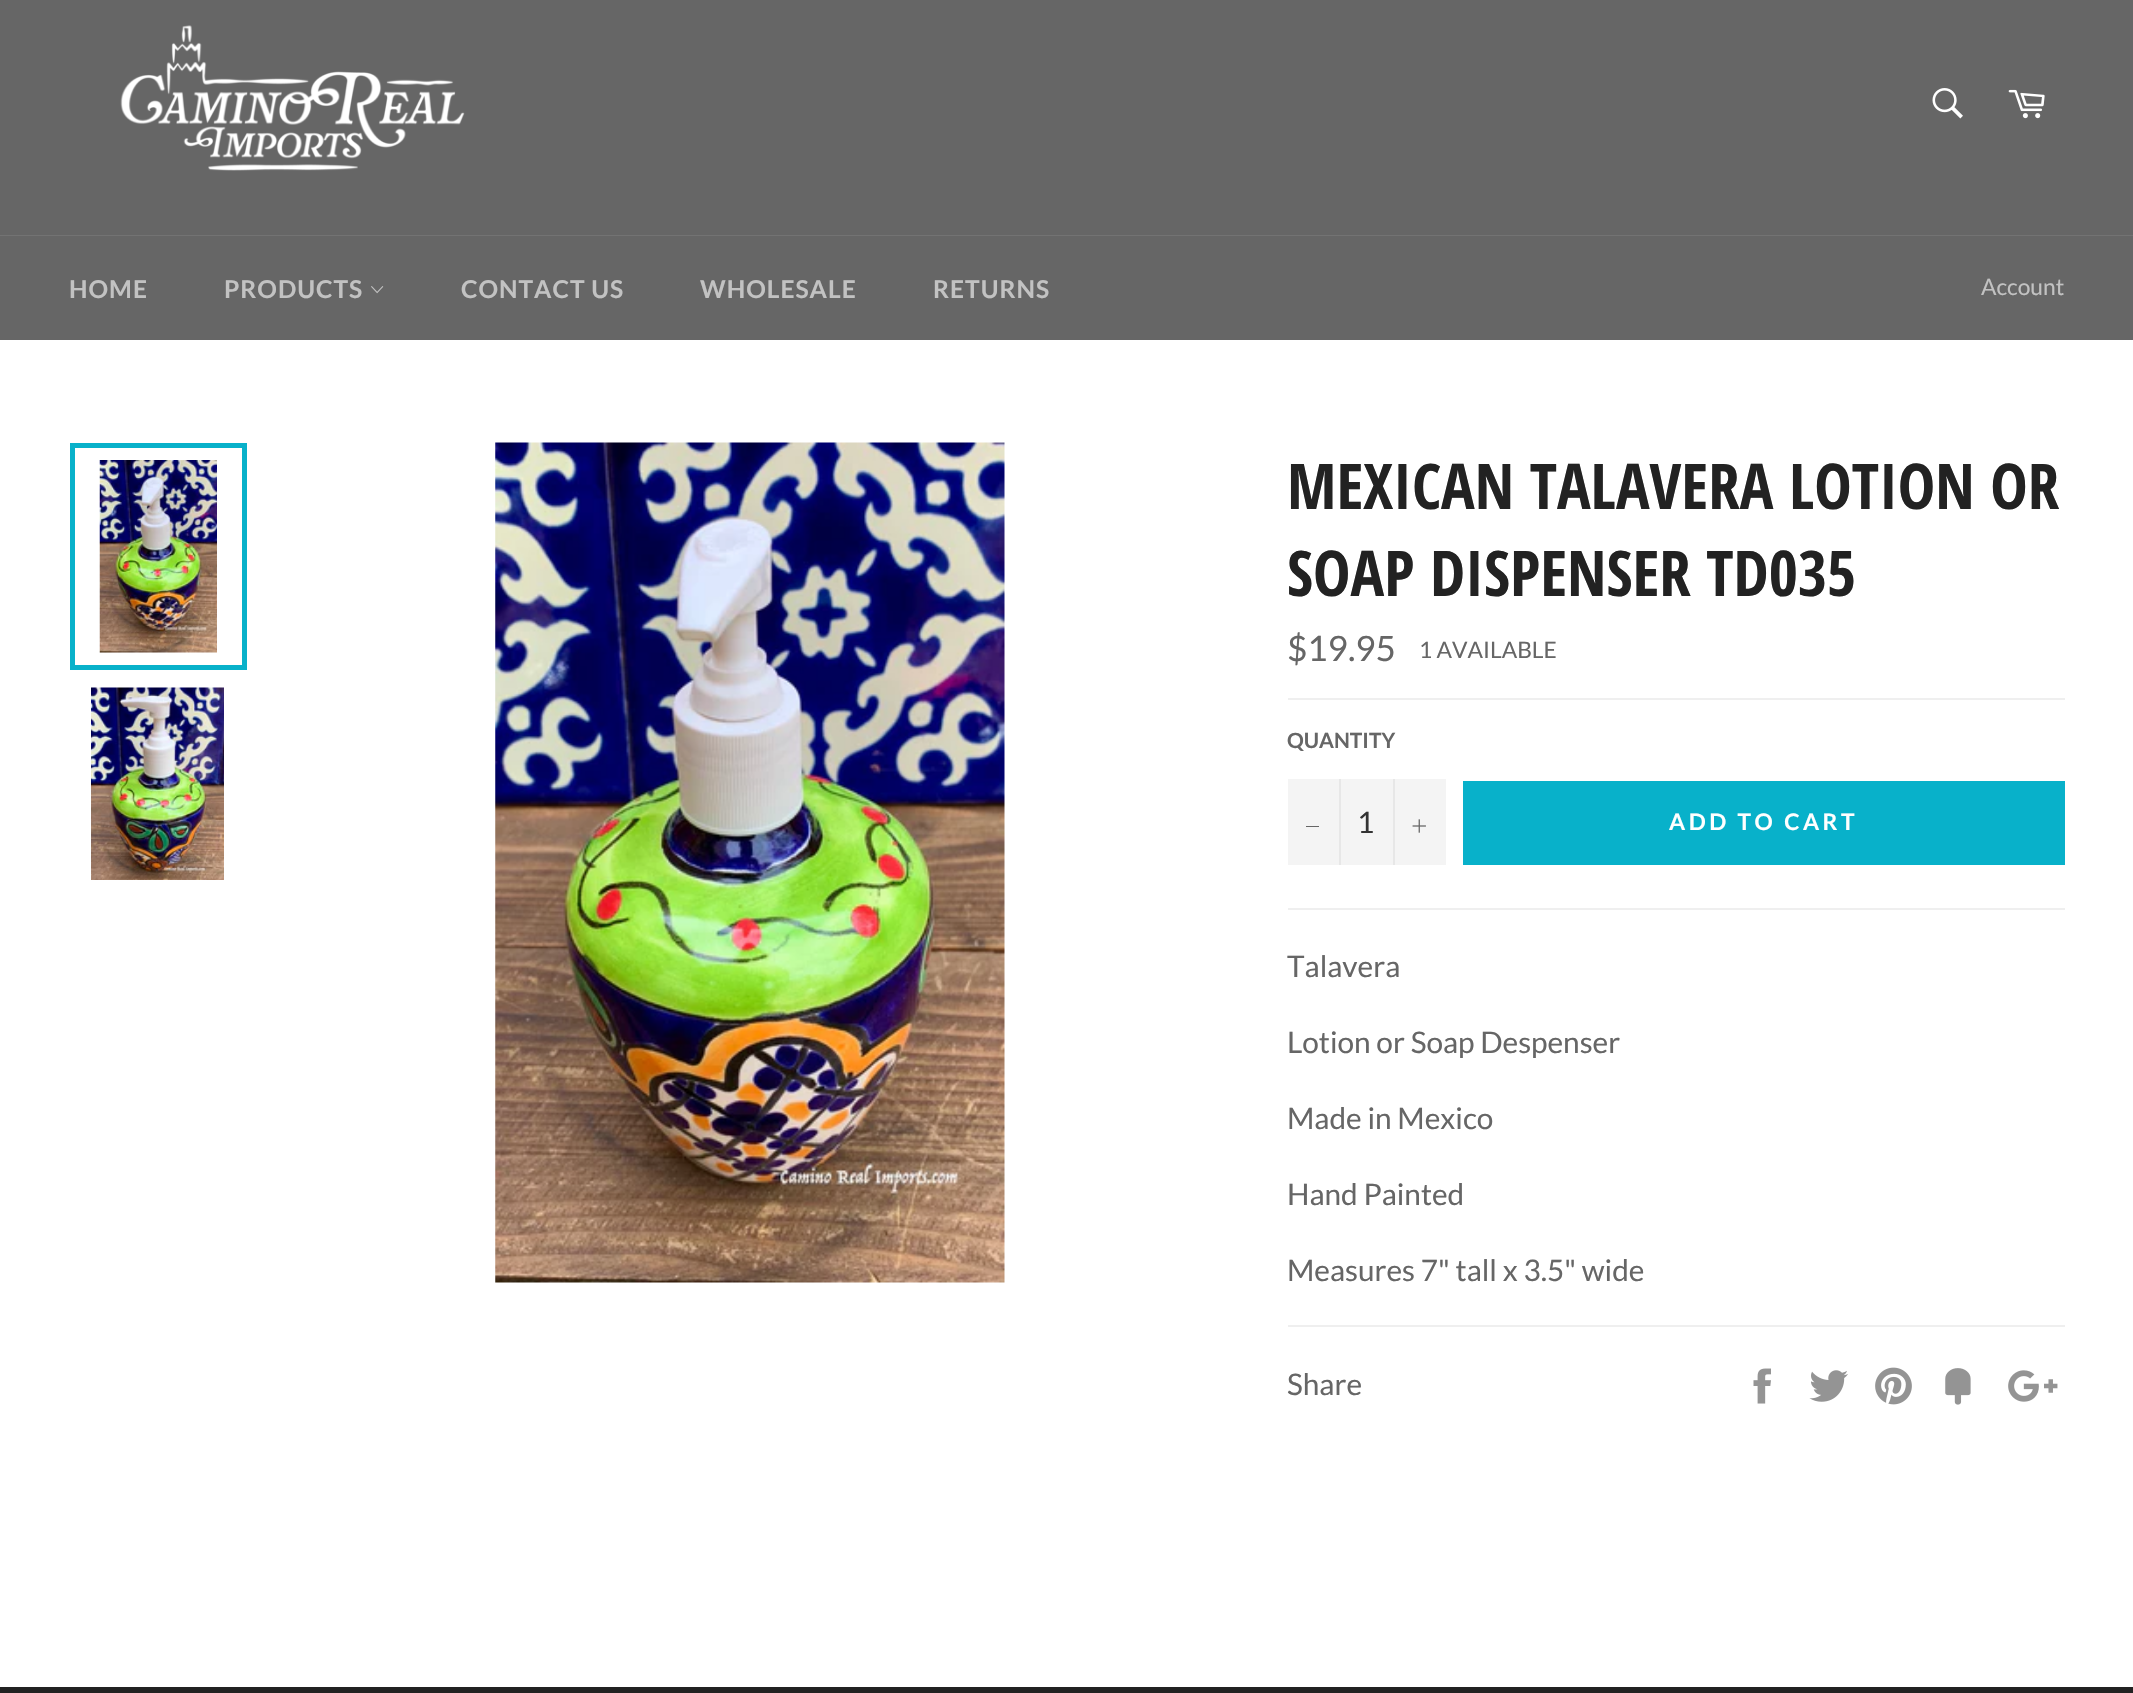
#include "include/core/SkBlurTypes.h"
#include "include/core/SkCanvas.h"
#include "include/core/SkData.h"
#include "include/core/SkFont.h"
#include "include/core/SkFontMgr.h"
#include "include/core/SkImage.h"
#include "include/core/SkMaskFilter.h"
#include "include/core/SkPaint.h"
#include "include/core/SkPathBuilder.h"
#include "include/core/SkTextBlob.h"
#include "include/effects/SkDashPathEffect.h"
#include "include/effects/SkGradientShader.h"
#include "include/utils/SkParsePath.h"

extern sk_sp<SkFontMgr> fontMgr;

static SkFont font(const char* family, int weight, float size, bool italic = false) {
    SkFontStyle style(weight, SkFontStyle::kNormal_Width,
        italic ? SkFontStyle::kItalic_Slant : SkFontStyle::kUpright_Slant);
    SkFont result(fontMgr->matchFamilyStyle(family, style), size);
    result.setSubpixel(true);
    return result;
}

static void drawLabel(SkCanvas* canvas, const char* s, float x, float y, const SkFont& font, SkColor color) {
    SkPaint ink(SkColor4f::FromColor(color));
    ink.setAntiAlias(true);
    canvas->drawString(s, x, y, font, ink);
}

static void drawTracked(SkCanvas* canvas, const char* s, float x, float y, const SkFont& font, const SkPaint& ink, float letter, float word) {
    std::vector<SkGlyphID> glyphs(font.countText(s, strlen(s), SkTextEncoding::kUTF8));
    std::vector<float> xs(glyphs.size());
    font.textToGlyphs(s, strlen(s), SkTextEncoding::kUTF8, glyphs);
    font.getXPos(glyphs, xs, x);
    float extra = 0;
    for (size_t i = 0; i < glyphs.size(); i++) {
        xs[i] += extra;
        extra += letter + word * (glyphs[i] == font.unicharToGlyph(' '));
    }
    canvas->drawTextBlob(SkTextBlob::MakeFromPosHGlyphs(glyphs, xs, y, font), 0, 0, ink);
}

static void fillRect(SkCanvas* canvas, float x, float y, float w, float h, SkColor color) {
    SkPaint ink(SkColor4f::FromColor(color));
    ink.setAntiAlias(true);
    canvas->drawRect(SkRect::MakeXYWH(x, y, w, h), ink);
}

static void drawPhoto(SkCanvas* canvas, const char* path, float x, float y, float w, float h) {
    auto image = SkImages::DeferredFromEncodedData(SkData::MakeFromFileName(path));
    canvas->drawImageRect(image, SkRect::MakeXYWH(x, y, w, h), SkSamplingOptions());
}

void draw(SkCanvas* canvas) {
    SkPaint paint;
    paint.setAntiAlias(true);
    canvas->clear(0xFFFFFFFF);
    fillRect(canvas, 0, 0, 2133, 235, 0xFF666666);
    drawPhoto(canvas, "assets/img1.png", 120, 25, 345, 146);
    drawPhoto(canvas, "assets/img2.png", 1932, 88, 31, 31);
    drawPhoto(canvas, "assets/img3.png", 2008, 89, 37, 30);
    fillRect(canvas, 0, 235, 2133, 1, 0xFF737373);
    fillRect(canvas, 0, 236, 2133, 104, 0xFF666666);
    SkFont font1 = font("Lato", 700, 24.5f);
    paint.setColor(0xFFC2C2C2);
    drawTracked(canvas, "HOME", 69, 298, font1, paint, 1, 0);
    drawTracked(canvas, "PRODUCTS", 224, 298, font1, paint, 1, 0);
    drawPhoto(canvas, "assets/img4.png", 371, 286, 13, 8);
    drawTracked(canvas, "CONTACT US", 461, 298, font1, paint, 1, 0);
    drawTracked(canvas, "WHOLESALE", 700, 298, font1, paint, 1, 0);
    drawTracked(canvas, "RETURNS", 933, 298, font1, paint, 1, 0);
    SkFont font2 = font("Lato", 400, 22.75f);
    drawLabel(canvas, "Account", 1981, 295, font2, 0xFFC2C2C2);
    drawPhoto(canvas, "assets/img5.png", 99, 460, 118, 193);
    paint.setStroke(true);
    paint.setStrokeWidth(5);
    paint.setColor(0xFF08B1CA);
    canvas->drawRect(SkRect::MakeXYWH(72.5f, 445.5f, 172, 222), paint);
    drawPhoto(canvas, "assets/img6.png", 91, 687, 133, 193);
    drawPhoto(canvas, "assets/img7.png", 495, 442, 510, 841);
    SkFont font3 = font("Open Sans Condensed", 700, 63);
    drawLabel(canvas, "MEXICAN TALAVERA LOTION OR", 1287, 509, font3, 0xFF222222);
    drawLabel(canvas, "SOAP DISPENSER TD035", 1287, 596, font3, 0xFF222222);
    SkFont font4 = font("Lato", 400, 35);
    drawLabel(canvas, "$19.95", 1287, 661, font4, 0xFF666666);
    drawLabel(canvas, "1 AVAILABLE", 1419, 658, font2, 0xFF666666);
    fillRect(canvas, 1288, 698, 777, 2, 0xFFEFEFEF);
    SkFont font5 = font("Lato", 700, 21);
    drawLabel(canvas, "QUANTITY", 1287, 748, font5, 0xFF666666);
    fillRect(canvas, 1288, 779, 158, 86, 0xFFF4F4F4);
    fillRect(canvas, 1339, 779, 2, 86, 0xFFE7E7E7);
    fillRect(canvas, 1306, 826, 13, 1, 0xFF666666);
    SkFont font6 = font("Lato", 400, 29.75f);
    drawLabel(canvas, "1", 1357, 833, font6, 0xFF333333);
    fillRect(canvas, 1393, 779, 2, 86, 0xFFE7E7E7);
    drawPhoto(canvas, "assets/img8.png", 1412, 819, 14, 14);
    fillRect(canvas, 1463, 781, 602, 84, 0xFF08B1CA);
    SkFont font7 = font("Lato", 700, 22.75f);
    paint.setStroke(false);
    paint.setColor(0xFFFFFFFF);
    drawTracked(canvas, "ADD TO CART", 1669, 830, font7, paint, 3.5f, 0);
    fillRect(canvas, 1288, 908, 777, 2, 0xFFEFEFEF);
    drawLabel(canvas, "Talavera", 1287, 977, font6, 0xFF666666);
    drawLabel(canvas, "Lotion or Soap Despenser", 1287, 1053, font6, 0xFF666666);
    drawLabel(canvas, "Made in Mexico", 1287, 1129, font6, 0xFF666666);
    drawLabel(canvas, "Hand Painted", 1287, 1205, font6, 0xFF666666);
    drawLabel(canvas, "Measures 7\" tall x 3.5\" wide", 1287, 1281, font6, 0xFF666666);
    fillRect(canvas, 1288, 1325, 777, 2, 0xFFEFEFEF);
    drawLabel(canvas, "Share", 1287, 1395, font6, 0xFF666666);
    drawPhoto(canvas, "assets/img9.png", 1753, 1368, 18, 36);
    drawPhoto(canvas, "assets/img10.png", 1809, 1370, 39, 32);
    drawPhoto(canvas, "assets/img11.png", 1875, 1367, 37, 38);
    drawPhoto(canvas, "assets/img12.png", 1945, 1368, 26, 37);
    drawPhoto(canvas, "assets/img13.png", 2008, 1370, 50, 32);
    fillRect(canvas, 0, 1687, 2133, 6, 0xFF222222);
}
